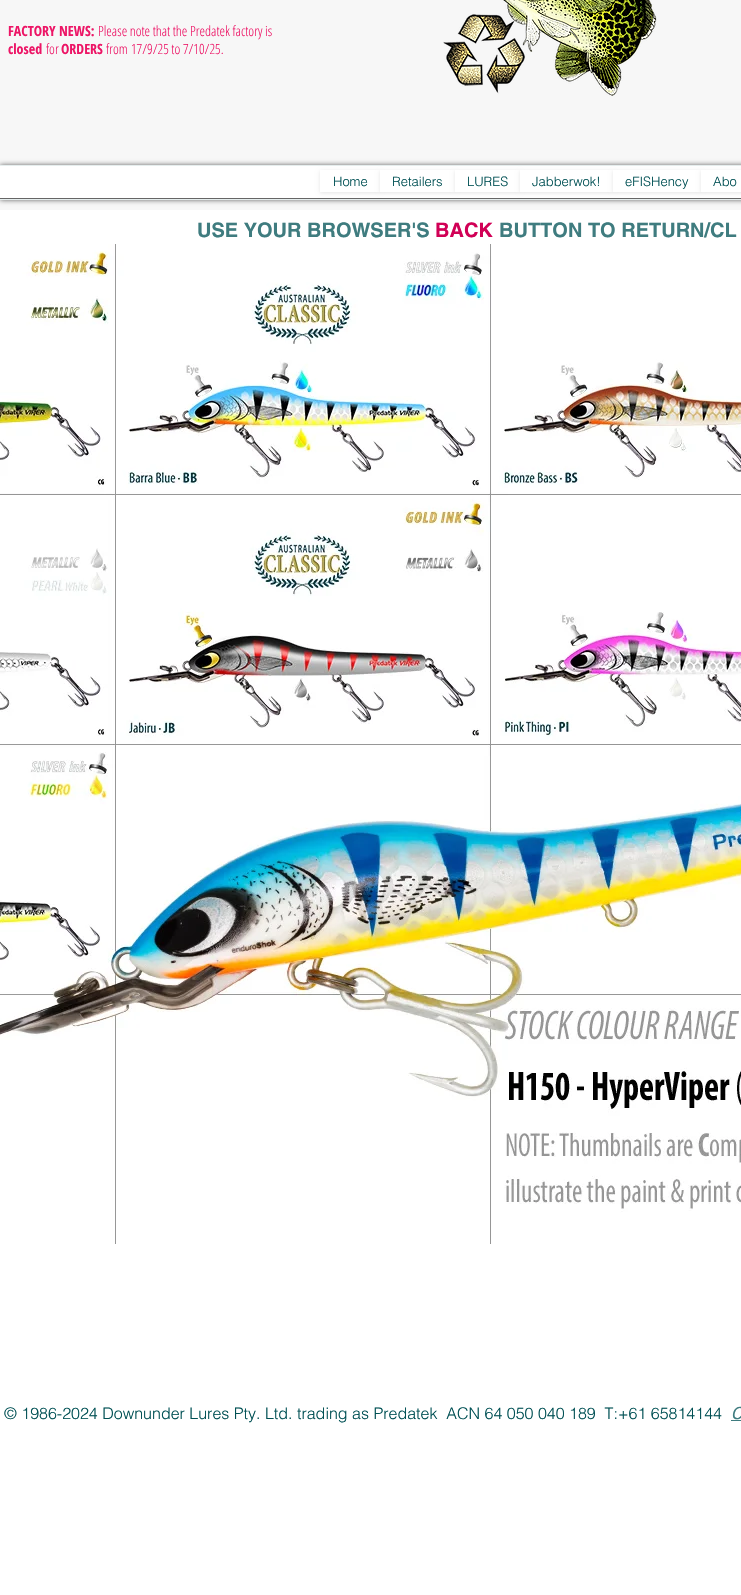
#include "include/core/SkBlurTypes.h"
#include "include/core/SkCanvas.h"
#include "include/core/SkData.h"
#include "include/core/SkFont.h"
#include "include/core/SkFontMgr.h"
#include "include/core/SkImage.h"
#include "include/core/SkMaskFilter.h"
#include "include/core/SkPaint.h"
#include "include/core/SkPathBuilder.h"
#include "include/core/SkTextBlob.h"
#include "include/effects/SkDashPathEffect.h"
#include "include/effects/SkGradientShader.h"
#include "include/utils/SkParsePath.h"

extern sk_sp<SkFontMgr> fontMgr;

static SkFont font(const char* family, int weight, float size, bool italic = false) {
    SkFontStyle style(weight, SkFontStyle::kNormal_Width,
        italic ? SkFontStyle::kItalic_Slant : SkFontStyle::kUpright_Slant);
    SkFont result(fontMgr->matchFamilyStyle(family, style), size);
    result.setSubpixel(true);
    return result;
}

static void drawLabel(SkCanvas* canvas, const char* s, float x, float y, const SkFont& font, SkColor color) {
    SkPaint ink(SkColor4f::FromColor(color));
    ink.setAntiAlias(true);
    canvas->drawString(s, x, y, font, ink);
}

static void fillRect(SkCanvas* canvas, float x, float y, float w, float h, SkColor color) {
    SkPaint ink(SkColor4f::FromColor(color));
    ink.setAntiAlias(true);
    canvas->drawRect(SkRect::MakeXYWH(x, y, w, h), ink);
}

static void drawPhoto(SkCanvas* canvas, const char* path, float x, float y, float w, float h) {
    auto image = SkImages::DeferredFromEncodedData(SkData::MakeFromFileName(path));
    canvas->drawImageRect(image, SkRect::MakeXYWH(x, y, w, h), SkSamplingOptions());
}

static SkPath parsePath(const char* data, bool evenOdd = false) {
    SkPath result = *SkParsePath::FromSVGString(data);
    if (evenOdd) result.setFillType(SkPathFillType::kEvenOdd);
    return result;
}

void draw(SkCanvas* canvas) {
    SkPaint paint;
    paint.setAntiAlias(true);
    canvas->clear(0xFFFFFFFF);
    fillRect(canvas, 0, 0, 741, 210, 0xFFF7F7F7);
    SkFont font1 = font("Open Sans Condensed", 700, 14);
    drawLabel(canvas, "FACTORY NEWS:", 8, 36, font1, 0xFFED1566);
    SkFont font2 = font("Open Sans Condensed", 300, 14);
    drawLabel(canvas, "Please note that the Predatek factory is", 98, 36, font2, 0xFFED1566);
    drawLabel(canvas, "closed", 8, 54, font1, 0xFFED1566);
    drawLabel(canvas, "for", 46, 54, font2, 0xFFED1566);
    drawLabel(canvas, "ORDERS", 61, 54, font1, 0xFFED1566);
    drawLabel(canvas, "from", 106, 54, font2, 0xFFED1566);
    drawLabel(canvas, "17/9/25 to 7/10/25.", 131, 54, font2, 0xFFED1566);
    drawPhoto(canvas, "assets/img1.png", 443, 0, 214, 96);
    paint.setColor(0x99000000);
    paint.setMaskFilter(SkMaskFilter::MakeBlur(kNormal_SkBlurStyle, 2.5f));
    canvas->drawRect(SkRect::MakeXYWH(0, 165, 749, 35), paint);
    paint.setMaskFilter(nullptr);
    fillRect(canvas, 0, 166, 741, 32, 0xFFFFFFFF);
    fillRect(canvas, 0, 198, 741, 1, 0xFF666666);
    fillRect(canvas, 0, 165, 741, 1, 0xFFE6EEEE);
    fillRect(canvas, 0, 199, 741, 1, 0xFFE6EEEE);
    canvas->save();
    canvas->clipPath(parsePath("M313 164H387V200H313ZM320 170H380V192H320Z", true), true);
    paint.setColor(0x1A000000);
    paint.setMaskFilter(SkMaskFilter::MakeBlur(kNormal_SkBlurStyle, 2));
    canvas->drawRect(SkRect::MakeXYWH(320, 171, 60, 22), paint);
    paint.setMaskFilter(nullptr);
    canvas->restore();
    SkFont font3 = font("helvetica", 300, 13);
    drawLabel(canvas, "Home", 333, 186, font3, 0xFF005054);
    paint.setMaskFilter(SkMaskFilter::MakeBlur(kNormal_SkBlurStyle, 2));
    canvas->drawRect(SkRect::MakeXYWH(380, 171, 75, 22), paint);
    paint.setMaskFilter(nullptr);
    fillRect(canvas, 380, 170, 75, 22, 0xFFFFFFFF);
    drawLabel(canvas, "Retailers", 392, 186, font3, 0xFF005054);
    paint.setMaskFilter(SkMaskFilter::MakeBlur(kNormal_SkBlurStyle, 2));
    canvas->drawRect(SkRect::MakeXYWH(455, 171, 65, 22), paint);
    paint.setMaskFilter(nullptr);
    fillRect(canvas, 455, 170, 65, 22, 0xFFFFFFFF);
    drawLabel(canvas, "LURES", 467, 186, font3, 0xFF005054);
    paint.setMaskFilter(SkMaskFilter::MakeBlur(kNormal_SkBlurStyle, 2));
    canvas->drawRect(SkRect::MakeXYWH(520, 171, 93, 22), paint);
    paint.setMaskFilter(nullptr);
    fillRect(canvas, 520, 170, 93, 22, 0xFFFFFFFF);
    drawLabel(canvas, "Jabberwok!", 532, 186, font3, 0xFF005054);
    paint.setMaskFilter(SkMaskFilter::MakeBlur(kNormal_SkBlurStyle, 2));
    canvas->drawRect(SkRect::MakeXYWH(613, 171, 88, 22), paint);
    paint.setMaskFilter(nullptr);
    fillRect(canvas, 613, 170, 88, 22, 0xFFFFFFFF);
    drawLabel(canvas, "eFISHency", 625, 186, font3, 0xFF005054);
    paint.setMaskFilter(SkMaskFilter::MakeBlur(kNormal_SkBlurStyle, 2));
    canvas->drawRect(SkRect::MakeXYWH(701, 171, 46, 22), paint);
    paint.setMaskFilter(nullptr);
    fillRect(canvas, 701, 170, 40, 22, 0xFFFFFFFF);
    drawLabel(canvas, "Abo", 713, 186, font3, 0xFF005054);
    SkFont font4 = font("helvetica", 700, 20);
    drawLabel(canvas, "USE YOUR BROWSER'S", 197, 237, font4, 0xFF3F7C7F);
    drawLabel(canvas, "BACK", 435, 237, font4, 0xFFD10056);
    drawLabel(canvas, "BUTTON TO RETURN/CL", 499, 237, font4, 0xFF3F7C7F);
    drawPhoto(canvas, "assets/img2.png", 0, 244, 741, 1000);
    SkFont font5 = font("helvetica", 300, 16);
    drawLabel(canvas, "© 1986-2024 Downunder Lures Pty. Ltd. trading as Predatek  ACN 64 050 040 189  T:+61 65814144", 4, 1419, font5, 0xFF005054);
    SkFont font6 = font("helvetica", 700, 16, true);
    drawLabel(canvas, "C", 731, 1419, font6, 0xFF3F7C7F);
    fillRect(canvas, 731, 1420, 10, 1, 0xFF3F7C7F);
}
